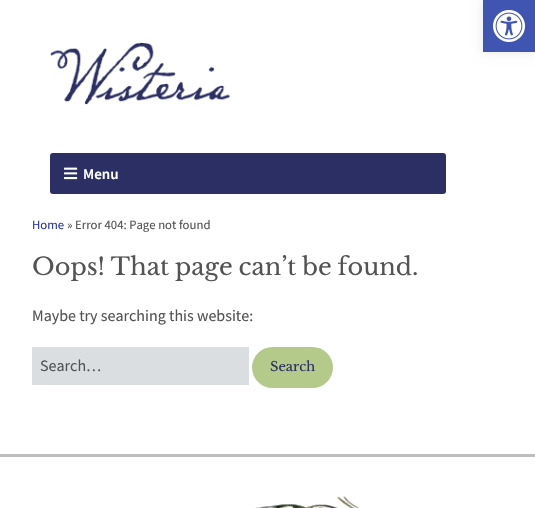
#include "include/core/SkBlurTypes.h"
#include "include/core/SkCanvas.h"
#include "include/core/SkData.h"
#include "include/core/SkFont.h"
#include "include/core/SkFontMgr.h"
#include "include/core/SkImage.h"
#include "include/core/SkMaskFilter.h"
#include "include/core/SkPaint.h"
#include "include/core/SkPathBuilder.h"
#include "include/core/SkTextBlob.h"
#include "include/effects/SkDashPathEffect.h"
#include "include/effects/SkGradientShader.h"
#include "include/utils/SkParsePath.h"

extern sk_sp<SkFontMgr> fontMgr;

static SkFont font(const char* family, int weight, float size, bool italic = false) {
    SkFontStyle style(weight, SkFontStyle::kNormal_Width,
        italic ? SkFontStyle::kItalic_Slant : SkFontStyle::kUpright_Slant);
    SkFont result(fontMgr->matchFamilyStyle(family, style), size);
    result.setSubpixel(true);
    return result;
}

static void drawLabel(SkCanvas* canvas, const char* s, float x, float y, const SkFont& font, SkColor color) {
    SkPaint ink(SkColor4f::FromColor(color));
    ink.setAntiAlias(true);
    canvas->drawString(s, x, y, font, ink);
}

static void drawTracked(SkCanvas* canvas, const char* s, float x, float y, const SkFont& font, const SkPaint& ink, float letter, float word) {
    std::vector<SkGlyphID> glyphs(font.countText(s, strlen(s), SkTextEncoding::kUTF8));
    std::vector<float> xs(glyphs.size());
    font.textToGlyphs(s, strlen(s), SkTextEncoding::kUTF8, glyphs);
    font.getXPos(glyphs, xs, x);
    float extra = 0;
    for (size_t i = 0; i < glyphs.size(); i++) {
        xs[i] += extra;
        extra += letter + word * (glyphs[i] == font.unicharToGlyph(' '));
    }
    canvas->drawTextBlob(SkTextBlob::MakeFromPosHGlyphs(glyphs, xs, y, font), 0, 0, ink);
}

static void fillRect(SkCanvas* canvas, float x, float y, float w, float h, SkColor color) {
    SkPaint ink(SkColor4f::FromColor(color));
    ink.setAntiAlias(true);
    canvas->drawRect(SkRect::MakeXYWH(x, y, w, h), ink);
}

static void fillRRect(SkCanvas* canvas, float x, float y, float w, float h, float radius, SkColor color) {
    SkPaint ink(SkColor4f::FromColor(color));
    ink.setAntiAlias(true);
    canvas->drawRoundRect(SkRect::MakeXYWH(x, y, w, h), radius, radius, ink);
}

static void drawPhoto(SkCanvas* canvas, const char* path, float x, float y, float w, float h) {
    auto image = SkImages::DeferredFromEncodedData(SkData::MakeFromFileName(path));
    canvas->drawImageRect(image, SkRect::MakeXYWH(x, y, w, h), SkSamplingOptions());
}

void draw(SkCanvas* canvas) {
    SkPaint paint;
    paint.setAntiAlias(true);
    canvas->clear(0xFFFFFFFF);
    paint.setColor(0x1A000000);
    paint.setMaskFilter(SkMaskFilter::MakeBlur(kNormal_SkBlurStyle, 5));
    canvas->drawRect(SkRect::MakeXYWH(483, 0, 52, 52), paint);
    paint.setMaskFilter(nullptr);
    fillRect(canvas, 483, 0, 52, 52, 0xFF4054B2);
    drawPhoto(canvas, "assets/img1.png", 493, 10, 32, 32);
    drawPhoto(canvas, "assets/img2.png", 50, 42, 180, 63);
    fillRRect(canvas, 50, 153, 396, 41, 3, 0xFF2B2F64);
    drawPhoto(canvas, "assets/img3.png", 64, 167, 14, 13);
    SkFont font1 = font("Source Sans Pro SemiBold", 600, 15);
    drawLabel(canvas, "Menu", 83, 179, font1, 0xFFFFFFFF);
    SkFont font2 = font("Source Sans Pro", 400, 12.75f);
    drawLabel(canvas, "Home", 32, 229, font2, 0xFF2B35B2);
    drawLabel(canvas, "» Error 404: Page not found", 67, 229, font2, 0xFF535353);
    SkFont font3 = font("Libre Baskerville", 400, 24);
    paint.setColor(0xFF535353);
    drawTracked(canvas, "Oops! That page can’t be found.", 32, 275, font3, paint, 0, -1);
    SkFont font4 = font("Source Sans Pro", 400, 16);
    drawLabel(canvas, "Maybe try searching this website:", 32, 321, font4, 0xFF535353);
    fillRect(canvas, 32, 347, 217, 38, 0xFFDBDEE0);
    drawLabel(canvas, "Search…", 40, 371, font4, 0xFF535353);
    fillRRect(canvas, 252, 347, 81, 41, 20.5f, 0xFFB3CA8B);
    SkFont font5 = font("Libre Baskerville", 400, 13);
    drawLabel(canvas, "Search", 270, 371, font5, 0xFF2B2F64);
    fillRect(canvas, 0, 454, 535, 3, 0xFFBCBEC0);
    drawPhoto(canvas, "assets/img4.png", 255, 496, 104, 12);
}
